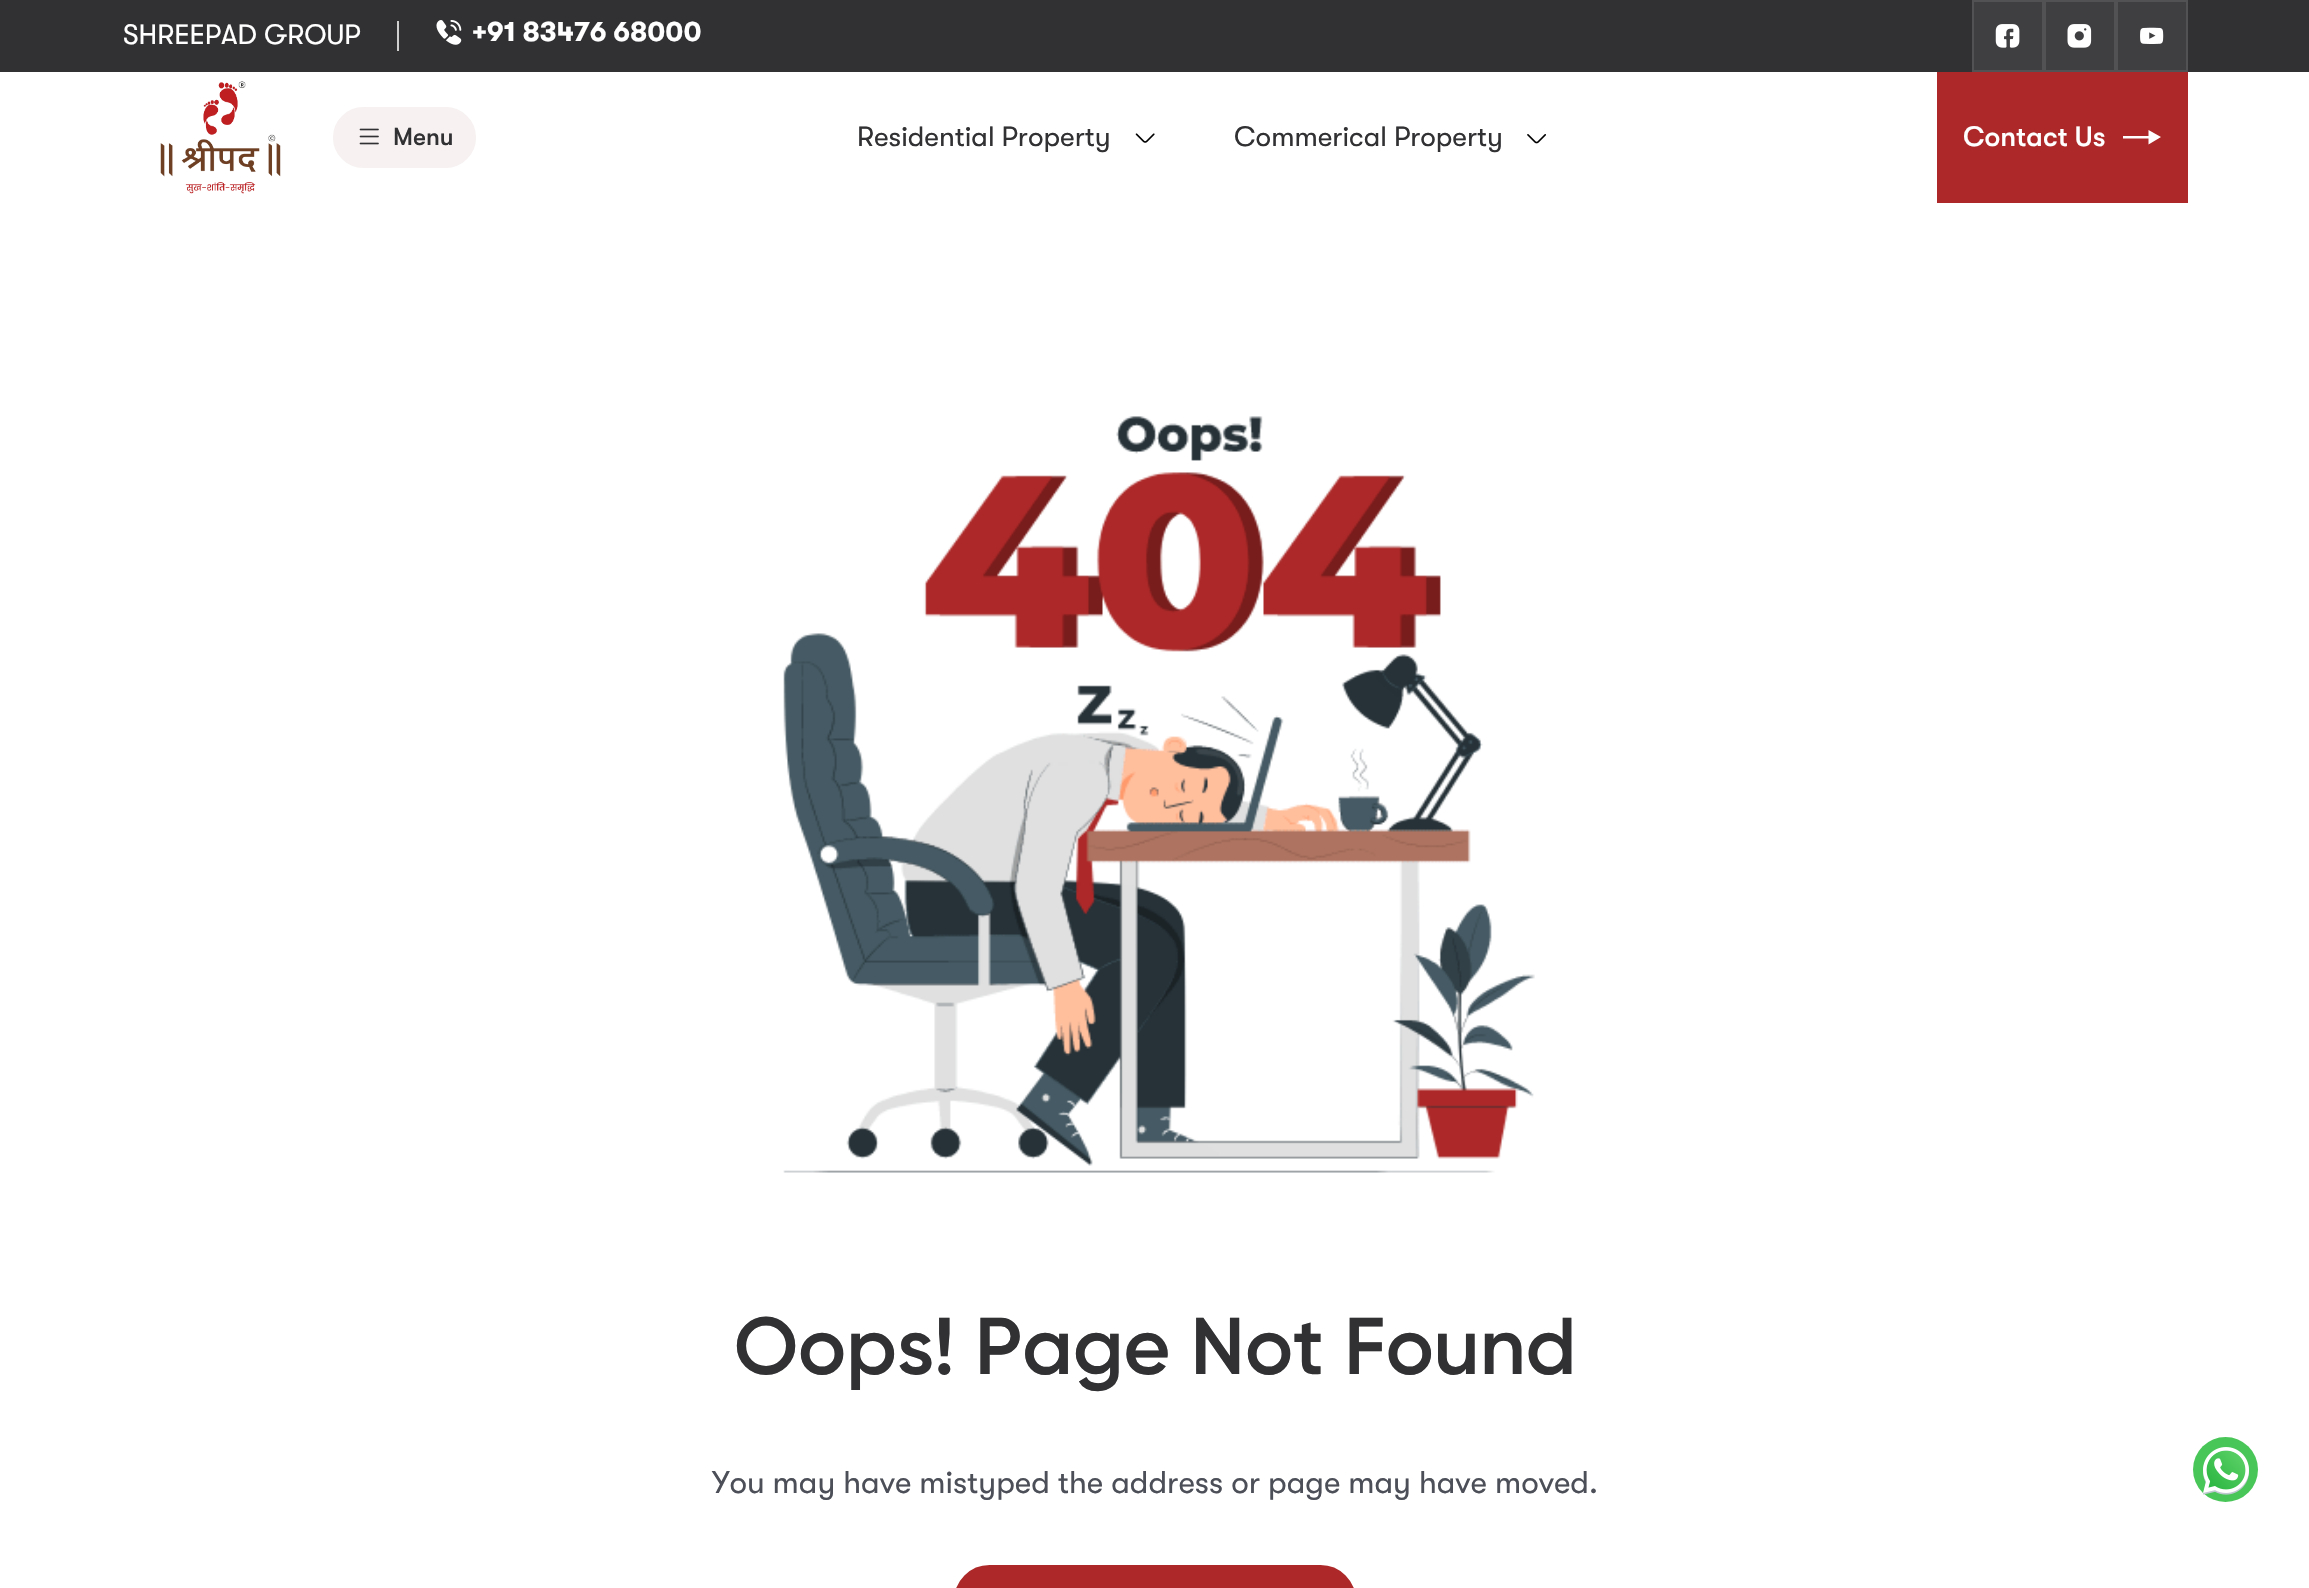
#include "include/core/SkBlurTypes.h"
#include "include/core/SkCanvas.h"
#include "include/core/SkData.h"
#include "include/core/SkFont.h"
#include "include/core/SkFontMgr.h"
#include "include/core/SkImage.h"
#include "include/core/SkMaskFilter.h"
#include "include/core/SkPaint.h"
#include "include/core/SkPathBuilder.h"
#include "include/core/SkTextBlob.h"
#include "include/effects/SkDashPathEffect.h"
#include "include/effects/SkGradientShader.h"
#include "include/utils/SkParsePath.h"

extern sk_sp<SkFontMgr> fontMgr;

static SkFont font(const char* family, int weight, float size, bool italic = false) {
    SkFontStyle style(weight, SkFontStyle::kNormal_Width,
        italic ? SkFontStyle::kItalic_Slant : SkFontStyle::kUpright_Slant);
    SkFont result(fontMgr->matchFamilyStyle(family, style), size);
    result.setSubpixel(true);
    return result;
}

static void drawLabel(SkCanvas* canvas, const char* s, float x, float y, const SkFont& font, SkColor color) {
    SkPaint ink(SkColor4f::FromColor(color));
    ink.setAntiAlias(true);
    canvas->drawString(s, x, y, font, ink);
}

static void fillRect(SkCanvas* canvas, float x, float y, float w, float h, SkColor color) {
    SkPaint ink(SkColor4f::FromColor(color));
    ink.setAntiAlias(true);
    canvas->drawRect(SkRect::MakeXYWH(x, y, w, h), ink);
}

static void drawPhoto(SkCanvas* canvas, const char* path, float x, float y, float w, float h) {
    auto image = SkImages::DeferredFromEncodedData(SkData::MakeFromFileName(path));
    canvas->drawImageRect(image, SkRect::MakeXYWH(x, y, w, h), SkSamplingOptions());
}

static SkPath parsePath(const char* data, bool evenOdd = false) {
    SkPath result = *SkParsePath::FromSVGString(data);
    if (evenOdd) result.setFillType(SkPathFillType::kEvenOdd);
    return result;
}

void draw(SkCanvas* canvas) {
    SkPaint paint;
    paint.setAntiAlias(true);
    canvas->clear(0xFFFFFFFF);
    fillRect(canvas, 0, 0, 2309, 72, 0xFF313033);
    SkFont font1 = font("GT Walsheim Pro", 400, 28);
    drawLabel(canvas, "SHREEPAD GROUP", 123, 44, font1, 0xFFFFFFFF);
    fillRect(canvas, 397, 21, 2, 30, 0xFFD0CFD0);
    drawPhoto(canvas, "assets/img1.png", 436, 20, 26, 25);
    SkFont font2 = font("GT Walsheim Pro", 700, 28);
    drawLabel(canvas, "+91 83476 68000", 472, 41, font2, 0xFFFFFFFF);
    paint.setColor(0xFF3F3E41);
    canvas->drawRect(SkRect::MakeXYWH(1973, 1, 70, 70), paint);
    paint.setStroke(true);
    paint.setStrokeWidth(2);
    paint.setColor(0xFF525154);
    canvas->drawRect(SkRect::MakeXYWH(1973, 1, 70, 70), paint);
    drawPhoto(canvas, "assets/img2.png", 1995, 24, 25, 24);
    paint.setStroke(false);
    paint.setColor(0xFF3F3E41);
    canvas->drawRect(SkRect::MakeXYWH(2045, 1, 70, 70), paint);
    paint.setStroke(true);
    paint.setColor(0xFF525154);
    canvas->drawRect(SkRect::MakeXYWH(2045, 1, 70, 70), paint);
    drawPhoto(canvas, "assets/img3.png", 2067, 24, 25, 24);
    paint.setStroke(false);
    paint.setColor(0xFF3F3E41);
    canvas->drawRect(SkRect::MakeXYWH(2117, 1, 70, 70), paint);
    paint.setStroke(true);
    paint.setColor(0xFF525154);
    canvas->drawRect(SkRect::MakeXYWH(2117, 1, 70, 70), paint);
    drawPhoto(canvas, "assets/img4.png", 2140, 27, 24, 17);
    drawPhoto(canvas, "assets/img5.png", 160, 81, 121, 113);
    paint.setStroke(false);
    paint.setColor(0xFFF7F1F1);
    canvas->drawRoundRect(SkRect::MakeXYWH(334, 108, 141, 59), 29.5f, 29.5f, paint);
    paint.setStroke(true);
    canvas->drawRoundRect(SkRect::MakeXYWH(334, 108, 141, 59), 29.5f, 29.5f, paint);
    drawPhoto(canvas, "assets/img6.png", 359, 128, 20, 17);
    SkFont font3 = font("GT Walsheim Pro", 500, 24.5f);
    drawLabel(canvas, "Menu", 393, 145, font3, 0xFF313033);
    drawLabel(canvas, "Residential Property", 857, 146, font1, 0xFF313033);
    drawPhoto(canvas, "assets/img7.png", 1135, 133, 20, 10);
    drawLabel(canvas, "Commerical Property", 1234, 146, font1, 0xFF313033);
    drawPhoto(canvas, "assets/img8.png", 1527, 134, 19, 10);
    fillRect(canvas, 1937, 72, 251, 131, 0xFFAD2929);
    SkFont font4 = font("GT Walsheim Pro", 500, 28);
    drawLabel(canvas, "Contact Us", 1963, 146, font4, 0xFFFFFFFF);
    paint.setStroke(false);
    paint.setColor(0xFFFFFFFF);
    canvas->drawPath(parsePath("M2161 137L2148.5 130V144.5ZM2123 138.5H2150V136H2123Z"), paint);
    drawPhoto(canvas, "assets/img9.png", 783, 416, 752, 757);
    SkFont font5 = font("Gilroy", 600, 80.5f);
    drawLabel(canvas, "Oops! Page Not Found", 734, 1374, font5, 0xFF313033);
    SkFont font6 = font("GT Walsheim Pro", 400, 31.5f);
    drawLabel(canvas, "You may have mistyped the address or page may have moved.", 712, 1493, font6, 0xFF4C4F58);
    paint.setColor(0xFFAD2929);
    canvas->drawRoundRect(SkRect::MakeXYWH(955, 1566, 400, 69), 44.5f, 44.5f, paint);
    paint.setStroke(true);
    canvas->drawRoundRect(SkRect::MakeXYWH(955, 1566, 400, 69), 44.5f, 44.5f, paint);
    paint.setStroke(false);
    paint.setColor(0xFF49C658);
    canvas->drawCircle(2225.5f, 1469.5f, 32.5f, paint);
    drawPhoto(canvas, "assets/img10.png", 2203, 1447, 46, 48);
}
